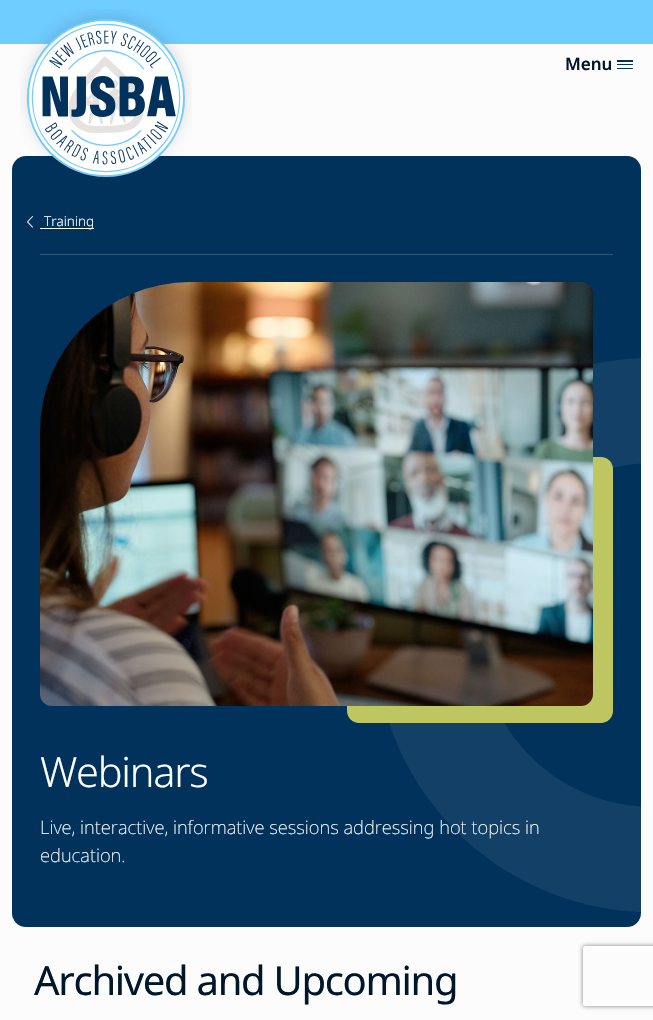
#include "include/core/SkBlurTypes.h"
#include "include/core/SkCanvas.h"
#include "include/core/SkData.h"
#include "include/core/SkFont.h"
#include "include/core/SkFontMgr.h"
#include "include/core/SkImage.h"
#include "include/core/SkMaskFilter.h"
#include "include/core/SkPaint.h"
#include "include/core/SkPathBuilder.h"
#include "include/core/SkTextBlob.h"
#include "include/effects/SkDashPathEffect.h"
#include "include/effects/SkGradientShader.h"
#include "include/utils/SkParsePath.h"

extern sk_sp<SkFontMgr> fontMgr;

static SkFont font(const char* family, int weight, float size, bool italic = false) {
    SkFontStyle style(weight, SkFontStyle::kNormal_Width,
        italic ? SkFontStyle::kItalic_Slant : SkFontStyle::kUpright_Slant);
    SkFont result(fontMgr->matchFamilyStyle(family, style), size);
    result.setSubpixel(true);
    return result;
}

static void drawLabel(SkCanvas* canvas, const char* s, float x, float y, const SkFont& font, SkColor color) {
    SkPaint ink(SkColor4f::FromColor(color));
    ink.setAntiAlias(true);
    canvas->drawString(s, x, y, font, ink);
}

static void drawTracked(SkCanvas* canvas, const char* s, float x, float y, const SkFont& font, const SkPaint& ink, float letter, float word) {
    std::vector<SkGlyphID> glyphs(font.countText(s, strlen(s), SkTextEncoding::kUTF8));
    std::vector<float> xs(glyphs.size());
    font.textToGlyphs(s, strlen(s), SkTextEncoding::kUTF8, glyphs);
    font.getXPos(glyphs, xs, x);
    float extra = 0;
    for (size_t i = 0; i < glyphs.size(); i++) {
        xs[i] += extra;
        extra += letter + word * (glyphs[i] == font.unicharToGlyph(' '));
    }
    canvas->drawTextBlob(SkTextBlob::MakeFromPosHGlyphs(glyphs, xs, y, font), 0, 0, ink);
}

static void fillRect(SkCanvas* canvas, float x, float y, float w, float h, SkColor color) {
    SkPaint ink(SkColor4f::FromColor(color));
    ink.setAntiAlias(true);
    canvas->drawRect(SkRect::MakeXYWH(x, y, w, h), ink);
}

static void fillRRect(SkCanvas* canvas, float x, float y, float w, float h, float radius, SkColor color) {
    SkPaint ink(SkColor4f::FromColor(color));
    ink.setAntiAlias(true);
    canvas->drawRoundRect(SkRect::MakeXYWH(x, y, w, h), radius, radius, ink);
}

static void drawPhoto(SkCanvas* canvas, const char* path, float x, float y, float w, float h) {
    auto image = SkImages::DeferredFromEncodedData(SkData::MakeFromFileName(path));
    canvas->drawImageRect(image, SkRect::MakeXYWH(x, y, w, h), SkSamplingOptions());
}

static SkPath parsePath(const char* data, bool evenOdd = false) {
    SkPath result = *SkParsePath::FromSVGString(data);
    if (evenOdd) result.setFillType(SkPathFillType::kEvenOdd);
    return result;
}

void draw(SkCanvas* canvas) {
    SkPaint paint;
    paint.setAntiAlias(true);
    canvas->clear(0xFFFCFCFC);
    fillRect(canvas, 0, 0, 653, 44, 0xFF70CDFF);
    fillRRect(canvas, 12, 156, 629, 771, 14, 0xFF00325C);
    drawPhoto(canvas, "assets/img1.png", 20, 9, 172, 168);
    SkFont font1 = font("Noto Sans", 600, 17);
    drawLabel(canvas, "Menu", 565, 70, font1, 0xFF001629);
    fillRect(canvas, 617, 60, 16, 2, 0xFF00325C);
    fillRRect(canvas, 617, 64, 16, 1, 0.5f, 0xFF00325C);
    fillRRect(canvas, 617, 68, 16, 1, 0.5f, 0xFF00325C);
    canvas->save();
    canvas->clipPath(parsePath("M26 156H627C634.5 156 641 162.5 641 170V913C641 920.5 634.5 927 627 927H26C18.5 927 12 920.5 12 913V170C12 162.5 18.5 156 26 156Z"), true);
    paint.setStroke(true);
    paint.setStrokeWidth(105.4f);
    paint.setColor(0xFF124067);
    canvas->drawCircle(652, 635, 224.5f, paint);
    canvas->restore();
    fillRect(canvas, 40, 254, 573, 1, 0xFF30597B);
    drawPhoto(canvas, "assets/img2.png", 27, 216, 6, 12);
    fillRect(canvas, 40, 228, 54, 1, 0xFFFFFFFF);
    SkFont font2 = font("Noto Sans", 300, 13.5f);
    drawLabel(canvas, "Training", 44, 226, font2, 0xFFFFFFFF);
    paint.setStroke(false);
    paint.setColor(0xFFBEC662);
    canvas->drawPath(parsePath("M567 457H601C607.5 457 613 462.5 613 469V711C613 717.5 607.5 723 601 723H359C352.5 723 347 717.5 347 711V677C347 555.5 445.5 457 567 457Z"), paint);
    drawPhoto(canvas, "assets/img3.png", 40, 282, 553, 424);
    SkFont font3 = font("Noto Sans", 300, 41.5f);
    paint.setColor(0xFFFFFFFF);
    drawTracked(canvas, "Webinars", 40, 787, font3, paint, -1.25f, 0);
    SkFont font4 = font("Noto Sans", 200, 18.4f);
    drawLabel(canvas, "Live, interactive, informative sessions addressing hot topics in", 40, 834, font4, 0xFFFFFFFF);
    drawLabel(canvas, "education.", 40, 862, font4, 0xFFFFFFFF);
    SkFont font5 = font("Noto Sans", 400, 40);
    paint.setColor(0xFF001629);
    drawTracked(canvas, "Archived and Upcoming", 34, 995, font5, paint, -1.3f, 0);
    canvas->save();
    canvas->clipPath(parsePath("M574 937H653V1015H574ZM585 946H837C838 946 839 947 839 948V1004C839 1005 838 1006 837 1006H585C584 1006 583 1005 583 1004V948C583 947 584 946 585 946Z", true), true);
    paint.setColor(0xFF808080);
    paint.setMaskFilter(SkMaskFilter::MakeBlur(kNormal_SkBlurStyle, 2.5f));
    canvas->drawRoundRect(SkRect::MakeXYWH(583, 946, 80, 60), 2, 2, paint);
    paint.setMaskFilter(nullptr);
    canvas->restore();
}
